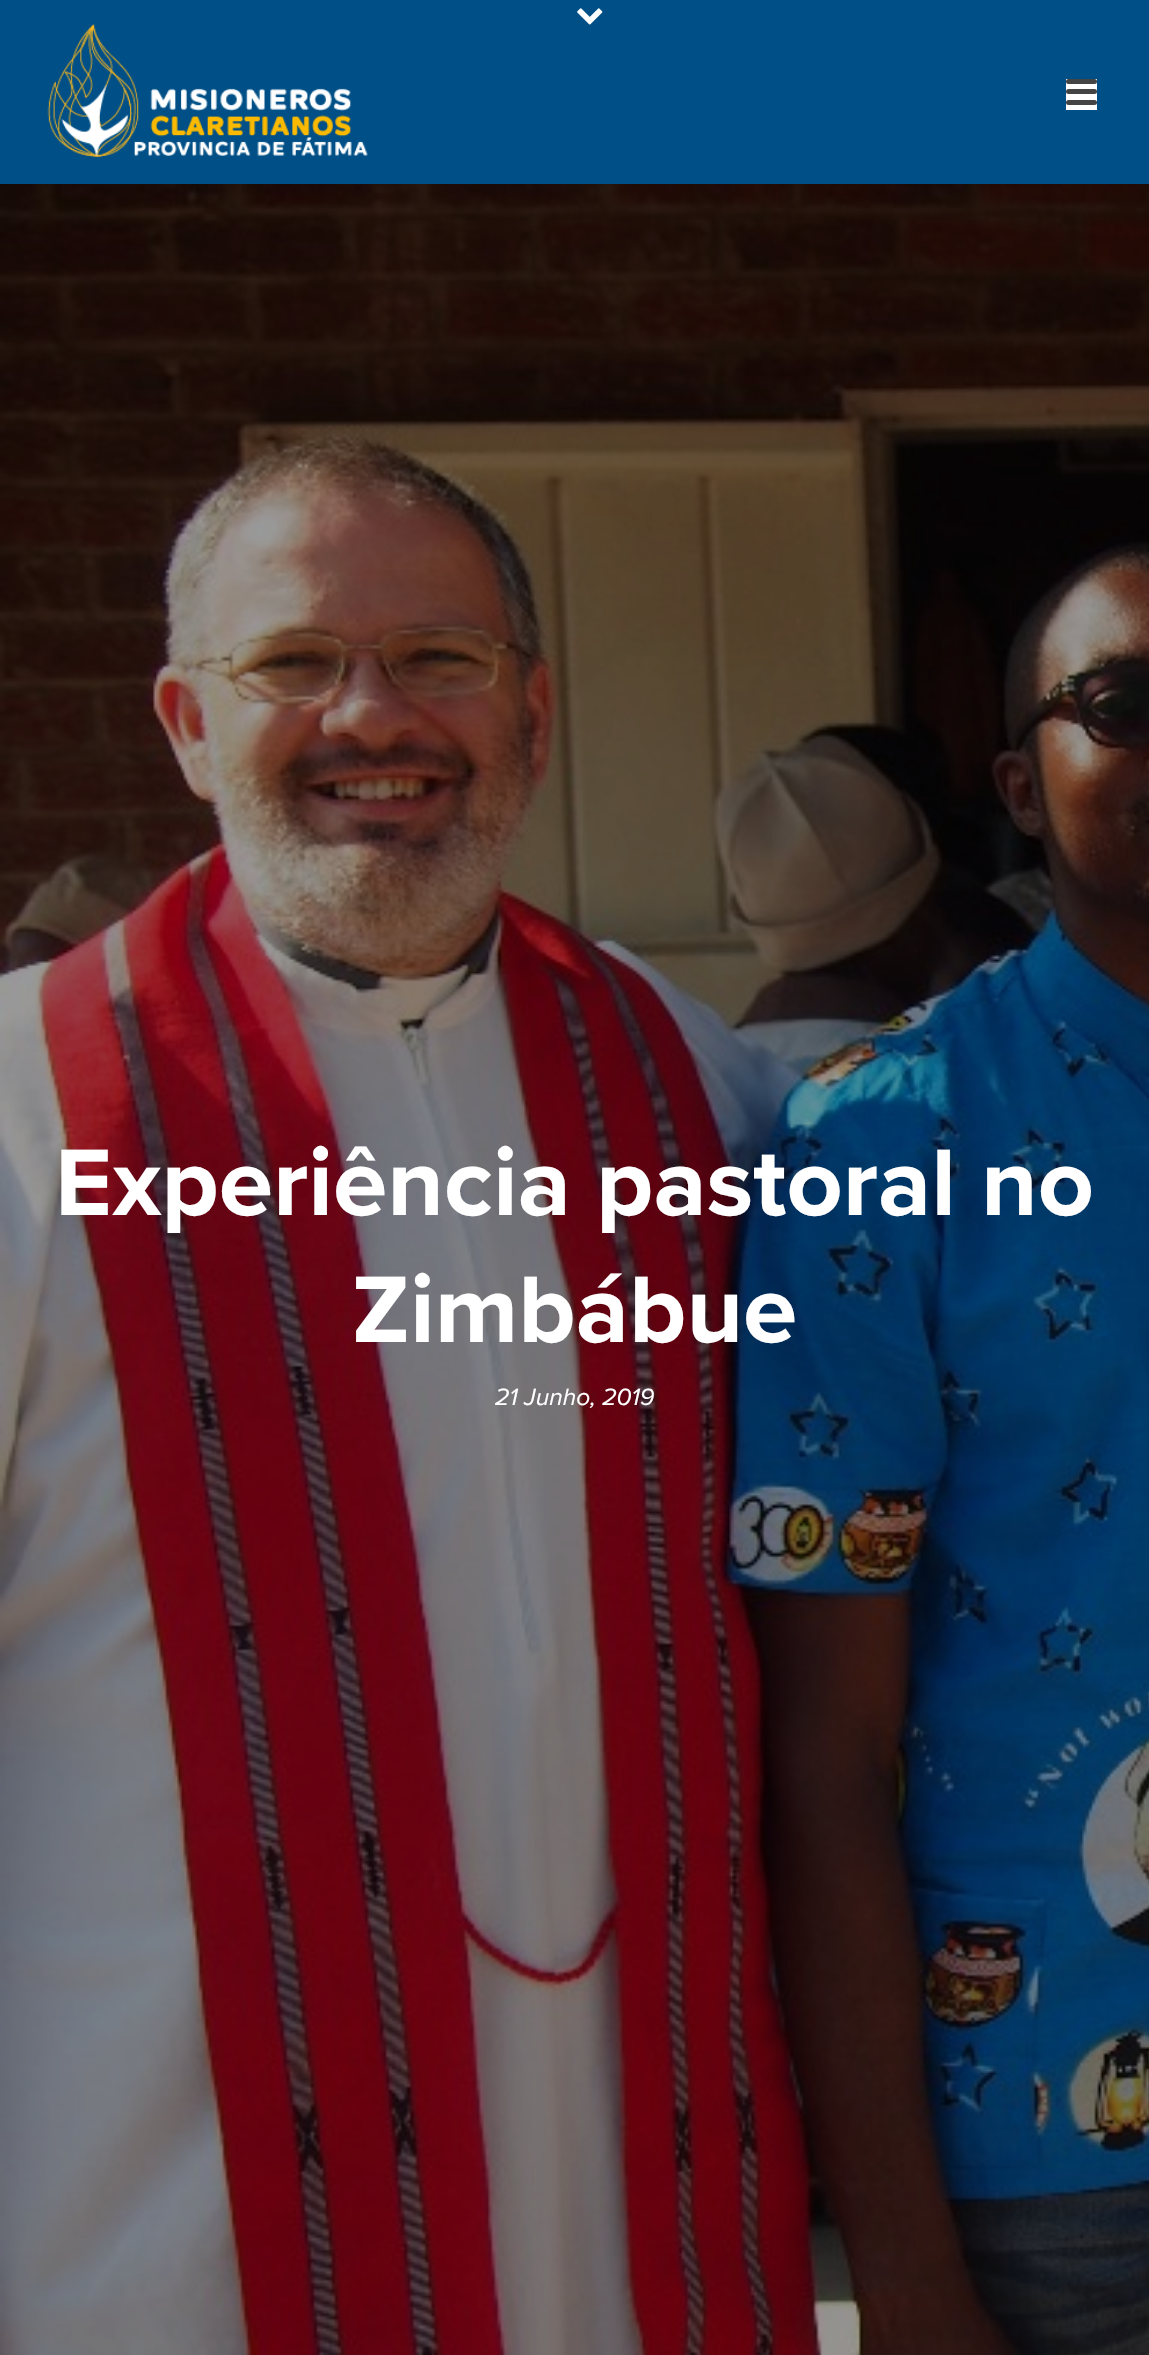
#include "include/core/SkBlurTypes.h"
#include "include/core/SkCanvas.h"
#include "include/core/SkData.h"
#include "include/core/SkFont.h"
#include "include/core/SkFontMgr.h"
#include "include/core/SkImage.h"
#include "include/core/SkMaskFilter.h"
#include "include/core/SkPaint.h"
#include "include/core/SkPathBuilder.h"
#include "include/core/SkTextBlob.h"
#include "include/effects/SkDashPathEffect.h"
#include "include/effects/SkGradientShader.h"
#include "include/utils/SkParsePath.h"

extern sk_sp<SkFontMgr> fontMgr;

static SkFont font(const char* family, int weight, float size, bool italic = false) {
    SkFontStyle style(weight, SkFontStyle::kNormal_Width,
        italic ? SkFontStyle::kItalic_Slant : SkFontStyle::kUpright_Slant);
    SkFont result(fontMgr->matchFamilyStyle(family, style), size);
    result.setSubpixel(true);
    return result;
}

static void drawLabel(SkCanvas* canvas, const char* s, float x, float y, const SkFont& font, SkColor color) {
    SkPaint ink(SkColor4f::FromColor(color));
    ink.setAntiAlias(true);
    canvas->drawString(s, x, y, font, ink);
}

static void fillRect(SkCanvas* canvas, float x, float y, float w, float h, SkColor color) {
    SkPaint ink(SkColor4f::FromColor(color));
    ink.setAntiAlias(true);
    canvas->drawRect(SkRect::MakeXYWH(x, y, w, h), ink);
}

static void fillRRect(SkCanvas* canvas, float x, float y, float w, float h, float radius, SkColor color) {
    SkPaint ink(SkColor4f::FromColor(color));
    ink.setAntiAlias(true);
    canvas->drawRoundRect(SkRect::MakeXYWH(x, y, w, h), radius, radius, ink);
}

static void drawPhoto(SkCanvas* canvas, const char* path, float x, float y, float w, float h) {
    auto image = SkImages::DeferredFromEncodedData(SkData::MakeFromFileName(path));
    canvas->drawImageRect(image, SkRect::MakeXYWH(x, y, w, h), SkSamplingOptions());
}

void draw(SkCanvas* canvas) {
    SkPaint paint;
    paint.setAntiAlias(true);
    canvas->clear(0xFFFFFFFF);
    fillRect(canvas, 0, 0, 1149, 184, 0xFF004F86);
    drawPhoto(canvas, "assets/img1.png", 577, 8, 26, 17);
    drawPhoto(canvas, "assets/img2.png", 47, 24, 321, 134);
    fillRect(canvas, 1066, 79, 31, 31, 0xFFFFFFFF);
    fillRRect(canvas, 1066, 79, 31, 5, 2.5f, 0xFF444444);
    fillRRect(canvas, 1066, 89, 31, 5, 2.5f, 0xFF444444);
    fillRRect(canvas, 1066, 100, 31, 5, 2.5f, 0xFF444444);
    drawPhoto(canvas, "assets/img3.png", 0, 184, 1149, 2171);
    SkFont font1 = font("Proxima Nova", 700, 98);
    drawLabel(canvas, "Experiência pastoral no", 55, 1215, font1, 0xFFFFFFFF);
    drawLabel(canvas, "Zimbábue", 352, 1342, font1, 0xFFFFFFFF);
    SkFont font2 = font("Proxima Nova", 400, 24.5f, true);
    drawLabel(canvas, "21 Junho, 2019", 495, 1405, font2, 0xFFFFFFFF);
}
